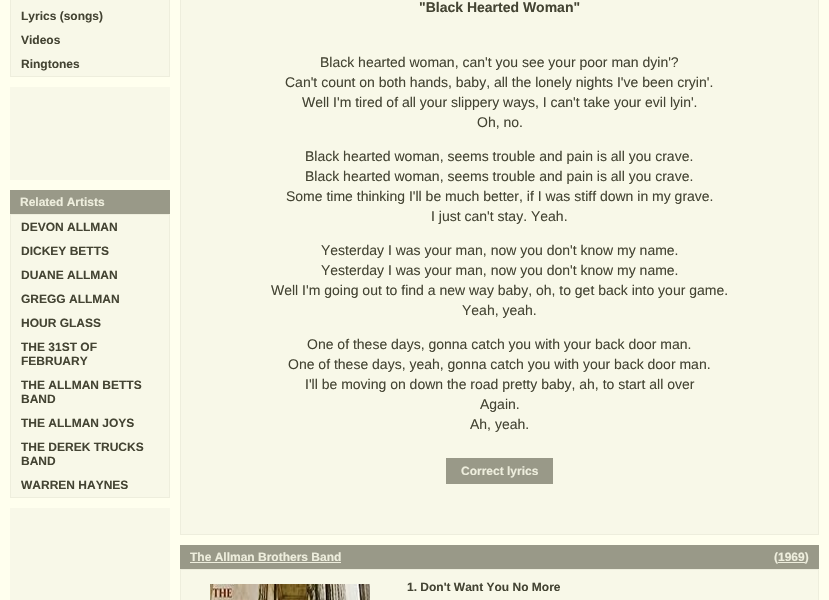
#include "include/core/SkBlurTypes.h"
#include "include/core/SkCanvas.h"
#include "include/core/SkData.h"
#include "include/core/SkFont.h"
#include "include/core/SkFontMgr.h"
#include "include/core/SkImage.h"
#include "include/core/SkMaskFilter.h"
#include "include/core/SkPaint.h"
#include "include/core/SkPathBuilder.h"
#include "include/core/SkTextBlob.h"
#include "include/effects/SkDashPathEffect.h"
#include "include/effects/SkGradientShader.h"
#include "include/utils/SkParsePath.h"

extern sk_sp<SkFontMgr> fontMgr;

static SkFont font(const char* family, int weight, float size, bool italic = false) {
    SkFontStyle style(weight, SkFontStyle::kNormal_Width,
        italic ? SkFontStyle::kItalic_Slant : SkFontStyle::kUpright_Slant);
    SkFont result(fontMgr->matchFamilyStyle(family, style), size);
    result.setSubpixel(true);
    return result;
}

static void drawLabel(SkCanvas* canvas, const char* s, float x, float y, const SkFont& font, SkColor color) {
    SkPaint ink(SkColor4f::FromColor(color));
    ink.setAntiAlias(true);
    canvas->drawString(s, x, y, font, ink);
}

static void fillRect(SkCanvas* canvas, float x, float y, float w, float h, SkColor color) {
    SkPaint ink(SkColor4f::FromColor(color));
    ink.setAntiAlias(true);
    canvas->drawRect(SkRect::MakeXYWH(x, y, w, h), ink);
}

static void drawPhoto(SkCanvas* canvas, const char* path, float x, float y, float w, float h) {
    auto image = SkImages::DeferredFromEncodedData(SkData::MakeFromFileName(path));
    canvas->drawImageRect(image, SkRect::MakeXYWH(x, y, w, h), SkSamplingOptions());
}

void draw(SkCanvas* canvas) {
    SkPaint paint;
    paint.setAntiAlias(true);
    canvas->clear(0xFFFFFFEE);
    paint.setColor(0xFFF8F8E8);
    canvas->drawRect(SkRect::MakeXYWH(10.5f, -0.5f, 159, 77), paint);
    paint.setStroke(true);
    paint.setStrokeWidth(1);
    paint.setColor(0xFFEEEEDD);
    canvas->drawRect(SkRect::MakeXYWH(10.5f, -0.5f, 159, 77), paint);
    SkFont font1 = font("Liberation Sans", 700, 12);
    drawLabel(canvas, "Lyrics (songs)", 21, 20, font1, 0xFF444433);
    drawLabel(canvas, "Videos", 21, 44, font1, 0xFF444433);
    drawLabel(canvas, "Ringtones", 21, 68, font1, 0xFF444433);
    fillRect(canvas, 10, 87, 160, 93, 0xFFF8F8E8);
    fillRect(canvas, 10, 190, 160, 24, 0xFF999988);
    drawLabel(canvas, "Related Artists", 20, 206, font1, 0xFFEEEEDD);
    paint.setStroke(false);
    paint.setColor(0xFFF8F8E8);
    canvas->drawRect(SkRect::MakeXYWH(10.5f, 214.5f, 159, 283), paint);
    paint.setStroke(true);
    paint.setColor(0xFFEEEEDD);
    canvas->drawRect(SkRect::MakeXYWH(10.5f, 214.5f, 159, 283), paint);
    drawLabel(canvas, "DEVON ALLMAN", 21, 231, font1, 0xFF444433);
    drawLabel(canvas, "DICKEY BETTS", 21, 255, font1, 0xFF444433);
    drawLabel(canvas, "DUANE ALLMAN", 21, 279, font1, 0xFF444433);
    drawLabel(canvas, "GREGG ALLMAN", 21, 303, font1, 0xFF444433);
    drawLabel(canvas, "HOUR GLASS", 21, 327, font1, 0xFF444433);
    drawLabel(canvas, "THE 31ST OF", 21, 351, font1, 0xFF444433);
    drawLabel(canvas, "FEBRUARY", 21, 365, font1, 0xFF444433);
    drawLabel(canvas, "THE ALLMAN BETTS", 21, 389, font1, 0xFF444433);
    drawLabel(canvas, "BAND", 21, 403, font1, 0xFF444433);
    drawLabel(canvas, "THE ALLMAN JOYS", 21, 427, font1, 0xFF444433);
    drawLabel(canvas, "THE DEREK TRUCKS", 21, 451, font1, 0xFF444433);
    drawLabel(canvas, "BAND", 21, 465, font1, 0xFF444433);
    drawLabel(canvas, "WARREN HAYNES", 21, 489, font1, 0xFF444433);
    fillRect(canvas, 10, 508, 160, 92, 0xFFF8F8E8);
    paint.setStroke(false);
    paint.setColor(0xFFF8F8E8);
    canvas->drawRect(SkRect::MakeXYWH(180.5f, -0.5f, 638, 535), paint);
    paint.setStroke(true);
    paint.setColor(0xFFEEEEDD);
    canvas->drawRect(SkRect::MakeXYWH(180.5f, -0.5f, 638, 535), paint);
    SkFont font2 = font("Liberation Sans", 700, 14);
    drawLabel(canvas, "\"Black Hearted Woman\"", 419, 12, font2, 0xFF444433);
    SkFont font3 = font("Liberation Sans", 400, 14);
    drawLabel(canvas, "Black hearted woman, can't you see your poor man dyin'?", 320, 67, font3, 0xFF444433);
    drawLabel(canvas, "Can't count on both hands, baby, all the lonely nights I've been cryin'.", 285, 87, font3, 0xFF444433);
    drawLabel(canvas, "Well I'm tired of all your slippery ways, I can't take your evil lyin'.", 302, 107, font3, 0xFF444433);
    drawLabel(canvas, "Oh, no.", 477, 127, font3, 0xFF444433);
    drawLabel(canvas, "Black hearted woman, seems trouble and pain is all you crave.", 305, 161, font3, 0xFF444433);
    drawLabel(canvas, "Black hearted woman, seems trouble and pain is all you crave.", 305, 181, font3, 0xFF444433);
    drawLabel(canvas, "Some time thinking I'll be much better, if I was stiff down in my grave.", 286, 201, font3, 0xFF444433);
    drawLabel(canvas, "I just can't stay. Yeah.", 431, 221, font3, 0xFF444433);
    drawLabel(canvas, "Yesterday I was your man, now you don't know my name.", 321, 255, font3, 0xFF444433);
    drawLabel(canvas, "Yesterday I was your man, now you don't know my name.", 321, 275, font3, 0xFF444433);
    drawLabel(canvas, "Well I'm going out to find a new way baby, oh, to get back into your game.", 271, 295, font3, 0xFF444433);
    drawLabel(canvas, "Yeah, yeah.", 462, 315, font3, 0xFF444433);
    drawLabel(canvas, "One of these days, gonna catch you with your back door man.", 307, 349, font3, 0xFF444433);
    drawLabel(canvas, "One of these days, yeah, gonna catch you with your back door man.", 288, 369, font3, 0xFF444433);
    drawLabel(canvas, "I'll be moving on down the road pretty baby, ah, to start all over", 305, 389, font3, 0xFF444433);
    drawLabel(canvas, "Again.", 480, 409, font3, 0xFF444433);
    drawLabel(canvas, "Ah, yeah.", 470, 429, font3, 0xFF444433);
    fillRect(canvas, 446, 458, 107, 26, 0xFF999988);
    drawLabel(canvas, "Correct lyrics", 461, 475, font1, 0xFFEEEEDD);
    fillRect(canvas, 180, 545, 639, 24, 0xFF999988);
    drawLabel(canvas, "The Allman Brothers Band", 190, 561, font1, 0xFFEEEEDD);
    fillRect(canvas, 190, 562, 151, 1, 0xFFEEEEDD);
    drawLabel(canvas, "(1969)", 774, 561, font1, 0xFFEEEEDD);
    fillRect(canvas, 778, 562, 27, 1, 0xFFEEEEDD);
    paint.setStroke(false);
    paint.setColor(0xFFF8F8E8);
    canvas->drawRect(SkRect::MakeXYWH(180.5f, 569.5f, 638, 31), paint);
    paint.setStroke(true);
    paint.setColor(0xFFEEEEDD);
    canvas->drawRect(SkRect::MakeXYWH(180.5f, 569.5f, 638, 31), paint);
    drawPhoto(canvas, "assets/img1.png", 210, 584, 160, 16);
    drawLabel(canvas, "1. Don't Want You No More", 407, 591, font1, 0xFF444433);
}
